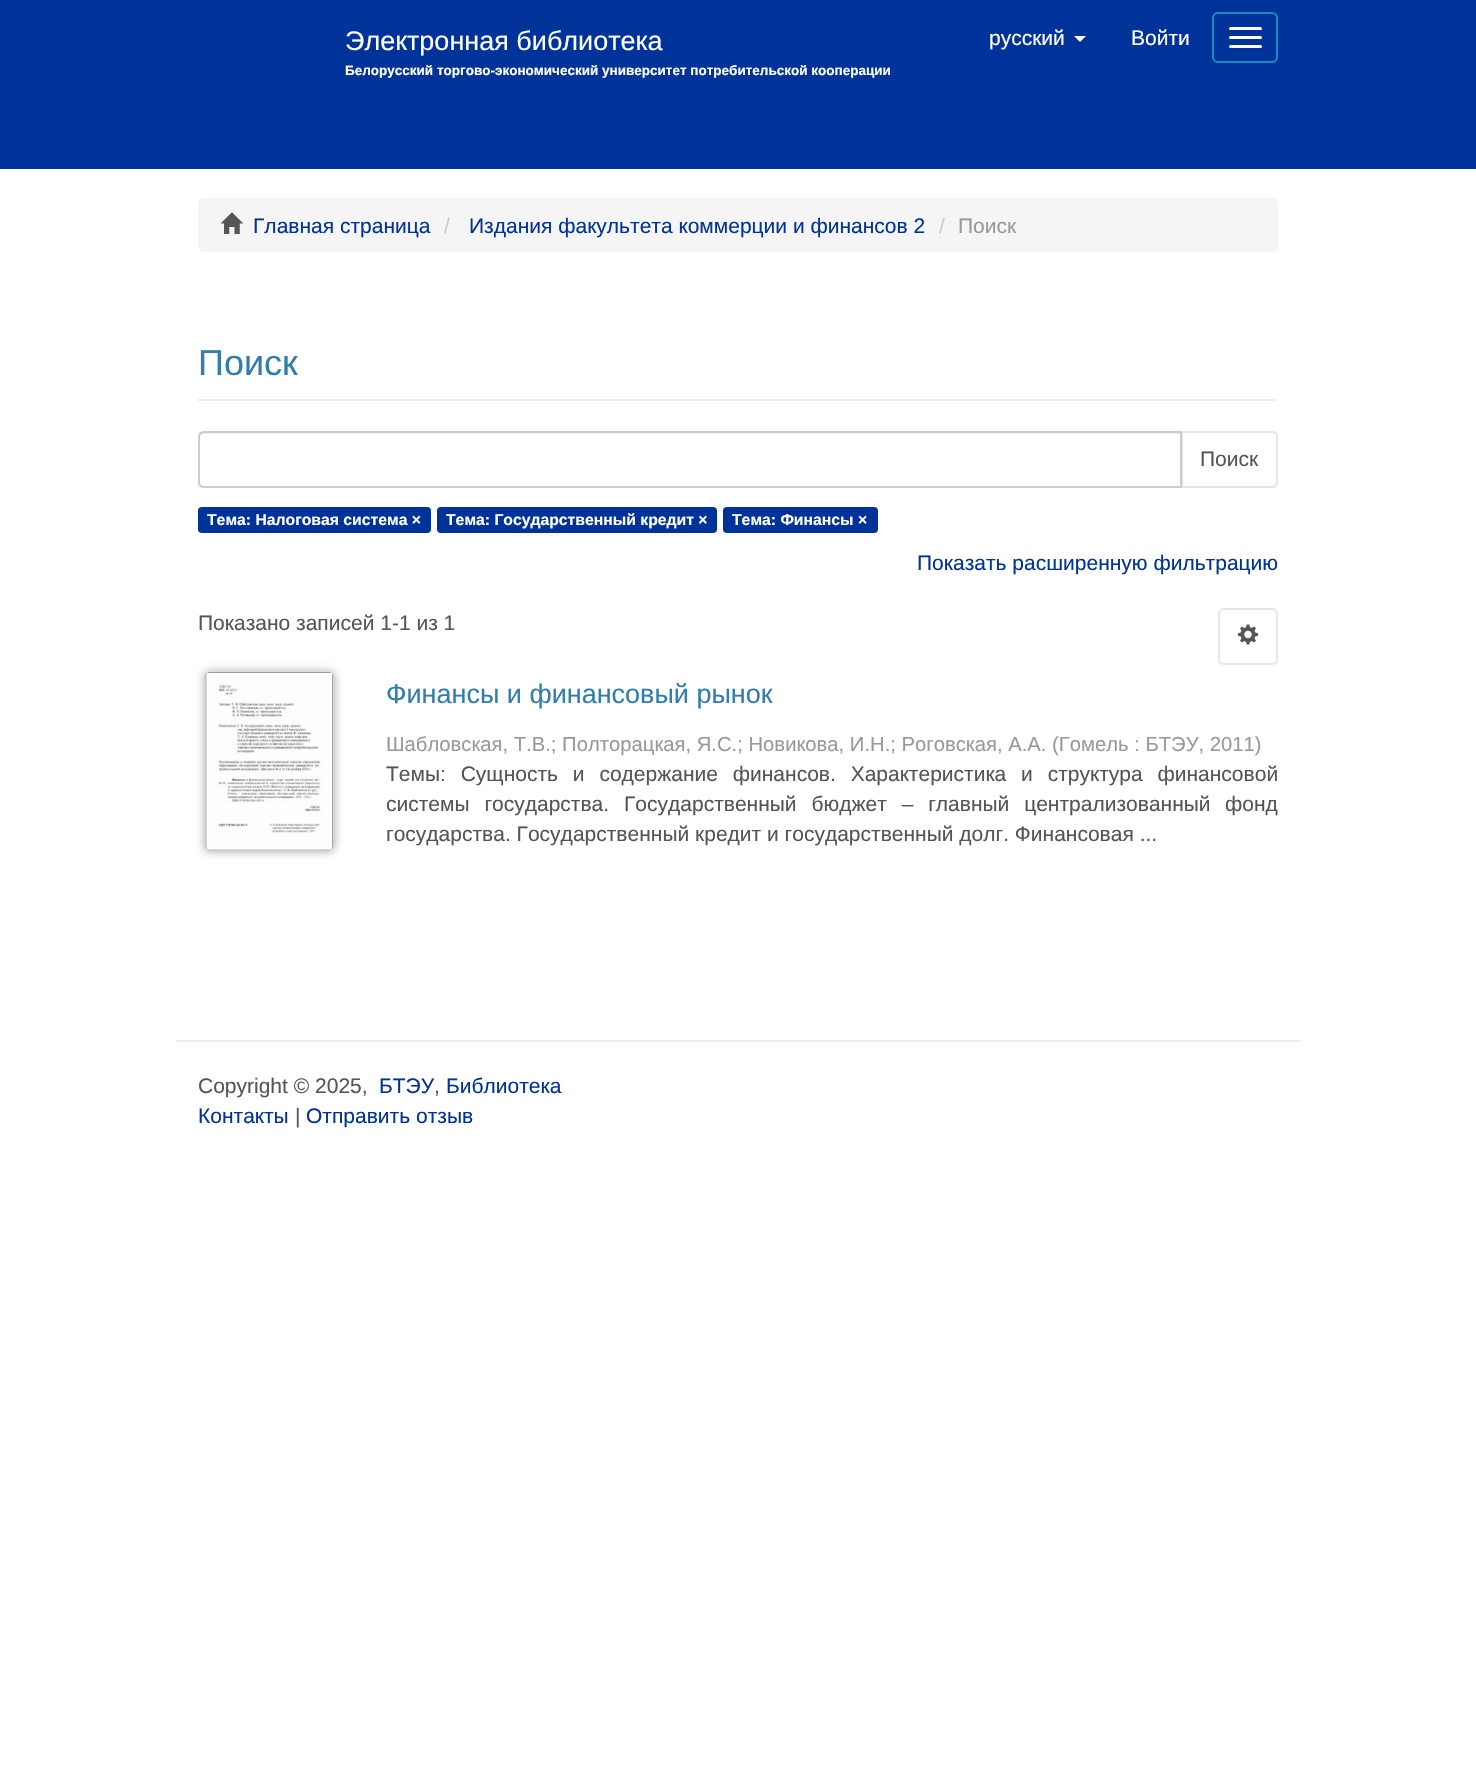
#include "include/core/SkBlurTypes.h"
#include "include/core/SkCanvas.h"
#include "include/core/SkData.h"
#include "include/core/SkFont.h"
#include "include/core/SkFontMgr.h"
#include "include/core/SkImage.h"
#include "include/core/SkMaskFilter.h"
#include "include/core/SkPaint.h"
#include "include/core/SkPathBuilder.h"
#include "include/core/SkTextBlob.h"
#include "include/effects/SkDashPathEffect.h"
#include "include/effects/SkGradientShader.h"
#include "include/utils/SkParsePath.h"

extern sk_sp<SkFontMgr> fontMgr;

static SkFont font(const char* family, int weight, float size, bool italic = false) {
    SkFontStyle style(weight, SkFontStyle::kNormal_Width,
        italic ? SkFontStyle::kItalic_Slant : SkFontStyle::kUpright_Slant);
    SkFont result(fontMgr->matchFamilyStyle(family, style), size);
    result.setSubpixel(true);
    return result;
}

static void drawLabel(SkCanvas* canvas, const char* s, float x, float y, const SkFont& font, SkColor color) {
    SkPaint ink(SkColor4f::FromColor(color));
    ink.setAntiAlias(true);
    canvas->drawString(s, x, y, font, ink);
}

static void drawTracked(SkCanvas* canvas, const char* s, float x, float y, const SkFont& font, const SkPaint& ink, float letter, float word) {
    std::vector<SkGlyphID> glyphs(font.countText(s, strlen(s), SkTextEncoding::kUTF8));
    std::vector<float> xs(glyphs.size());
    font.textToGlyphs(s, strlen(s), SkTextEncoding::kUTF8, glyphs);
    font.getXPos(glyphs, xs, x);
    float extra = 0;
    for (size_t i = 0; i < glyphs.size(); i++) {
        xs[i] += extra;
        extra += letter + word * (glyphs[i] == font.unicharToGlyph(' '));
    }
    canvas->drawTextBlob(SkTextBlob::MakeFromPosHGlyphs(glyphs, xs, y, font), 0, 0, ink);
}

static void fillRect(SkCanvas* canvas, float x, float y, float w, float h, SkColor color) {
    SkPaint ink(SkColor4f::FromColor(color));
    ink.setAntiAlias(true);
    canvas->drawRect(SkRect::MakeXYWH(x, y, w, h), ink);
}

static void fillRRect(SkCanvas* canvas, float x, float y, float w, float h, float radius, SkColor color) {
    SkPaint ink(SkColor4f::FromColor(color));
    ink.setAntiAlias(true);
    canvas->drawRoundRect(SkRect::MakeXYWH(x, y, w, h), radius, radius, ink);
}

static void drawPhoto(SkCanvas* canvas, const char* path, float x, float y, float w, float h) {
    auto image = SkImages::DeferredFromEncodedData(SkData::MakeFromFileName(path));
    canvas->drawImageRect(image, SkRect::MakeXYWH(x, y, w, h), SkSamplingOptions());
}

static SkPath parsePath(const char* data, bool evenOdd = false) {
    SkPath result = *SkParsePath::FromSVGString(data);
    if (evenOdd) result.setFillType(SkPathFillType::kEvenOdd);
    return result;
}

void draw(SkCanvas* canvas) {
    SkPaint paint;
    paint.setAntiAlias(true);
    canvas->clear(0xFFFFFFFF);
    fillRect(canvas, 0, 0, 1476, 169, 0xFF003399);
    SkFont font1 = font("Liberation Sans", 400, 27);
    drawLabel(canvas, "Электронная библиотека", 345, 50, font1, 0xFFFFFFFF);
    SkFont font2 = font("Liberation Sans", 700, 13.5f);
    drawLabel(canvas, "Белорусский торгово-экономический университет потребительской кооперации", 345, 75, font2, 0xFFFFFFFF);
    SkFont font3 = font("Liberation Sans", 400, 21);
    drawLabel(canvas, "русский", 989, 45, font3, 0xFFFFFFFF);
    paint.setColor(0xFFFFFFFF);
    canvas->drawPath(parsePath("M1074 36H1086L1080 42Z"), paint);
    drawLabel(canvas, "Войти", 1131, 45, font3, 0xFFFFFFFF);
    paint.setStroke(true);
    paint.setStrokeWidth(2);
    paint.setColor(0xFF178ACC);
    canvas->drawRoundRect(SkRect::MakeXYWH(1213, 13, 64, 49), 5, 5, paint);
    fillRRect(canvas, 1229, 27, 33, 3, 1.5f, 0xFFFFFFFF);
    fillRRect(canvas, 1229, 36, 33, 3, 1.5f, 0xFFFFFFFF);
    fillRRect(canvas, 1229, 45, 33, 3, 1.5f, 0xFFFFFFFF);
    fillRRect(canvas, 198, 198, 1080, 54, 6, 0xFFF5F5F5);
    drawPhoto(canvas, "assets/img1.png", 220, 212, 24, 22);
    drawLabel(canvas, "Главная страница", 253, 233, font3, 0xFF003399);
    drawLabel(canvas, "/", 444, 233, font3, 0xFFCCCCCC);
    drawLabel(canvas, "Издания факультета коммерции и финансов 2", 469, 233, font3, 0xFF003399);
    drawLabel(canvas, "/", 939, 233, font3, 0xFFCCCCCC);
    drawLabel(canvas, "Поиск", 958, 233, font3, 0xFF999999);
    fillRect(canvas, 198, 399, 1080, 2, 0xFFEEEEEE);
    SkFont font4 = font("Liberation Sans", 400, 36);
    drawLabel(canvas, "Поиск", 198, 375, font4, 0xFF317EAC);
    paint.setColor(0xFFE6E6E6);
    canvas->drawPath(parsePath("M1182 432H1272C1275 432 1277 434 1277 437V482C1277 485 1275 487 1272 487H1182Z"), paint);
    paint.setStroke(false);
    paint.setColor(0xFFFFFFFF);
    canvas->drawPath(parsePath("M204 431H1182V488H204C200.5 488 198 485.5 198 482V437C198 433.5 200.5 431 204 431Z"), paint);
    paint.setColor(0xFFECECEC);
    canvas->drawPath(parsePath("M204 434H1180V486H1181V432H205C202 432 200 435 200 438C200 436 202 434 204 434Z"), paint);
    paint.setStroke(true);
    paint.setColor(0xFFCCCCCC);
    canvas->drawPath(parsePath("M204 432H1181V487H204C201 487 199 485 199 482V437C199 434 201 432 204 432Z"), paint);
    drawLabel(canvas, "Поиск", 1200, 466, font3, 0xFF555555);
    fillRRect(canvas, 198, 507, 233, 26, 4, 0xFF003399);
    SkFont font5 = font("Liberation Sans", 700, 15.75f);
    drawLabel(canvas, "Тема: Налоговая система ×", 207, 525, font5, 0xFFFFFFFF);
    fillRRect(canvas, 437, 507, 280, 26, 4, 0xFF003399);
    drawLabel(canvas, "Тема: Государственный кредит ×", 446, 525, font5, 0xFFFFFFFF);
    fillRRect(canvas, 723, 507, 155, 26, 4, 0xFF003399);
    drawLabel(canvas, "Тема: Финансы ×", 732, 525, font5, 0xFFFFFFFF);
    drawLabel(canvas, "Показать расширенную фильтрацию", 917, 570, font3, 0xFF003399);
    drawLabel(canvas, "Показано записей 1-1 из 1", 198, 630, font3, 0xFF555555);
    paint.setColor(0xFFE6E6E6);
    canvas->drawRoundRect(SkRect::MakeXYWH(1219, 609, 58, 55), 5, 5, paint);
    drawPhoto(canvas, "assets/img2.png", 1237, 624, 22, 21);
    paint.setStroke(false);
    paint.setColor(0x4D000000);
    paint.setMaskFilter(SkMaskFilter::MakeBlur(kNormal_SkBlurStyle, 4));
    canvas->drawRoundRect(SkRect::MakeXYWH(204, 671, 131, 181), 6, 6, paint);
    paint.setMaskFilter(nullptr);
    fillRRect(canvas, 204, 671, 131, 181, 6, 0xFFFFFFFF);
    paint.setStroke(true);
    paint.setStrokeWidth(1.5f);
    paint.setColor(0xFFDDDDDD);
    canvas->drawPath(parsePath("M206.5 673L209.5 671.5H329L332 673"), paint);
    paint.setColor(0xFFCCCCCC);
    canvas->drawPath(parsePath("M332 673C333 674 334 675 334 676.5V846C334 847.5 333 848.5 332 849.5C331 850.5 330 851 328.5 851H210C208.5 851 207.5 850.5 206.5 849.5C205.5 848.5 205 847.5 205 846V676.5C205 675 205.5 674 206.5 673"), paint);
    drawPhoto(canvas, "assets/img3.png", 205, 672, 128, 179);
    drawLabel(canvas, "Финансы и финансовый рынок", 386, 703, font1, 0xFF317EAC);
    SkFont font6 = font("Liberation Sans", 400, 20.25f);
    drawLabel(canvas, "Шабловская, Т.В.; Полторацкая, Я.С.; Новикова, И.Н.; Роговская, А.А. (Гомель : БТЭУ, 2011)", 386, 751, font6, 0xFF999999);
    paint.setStroke(false);
    paint.setColor(0xFF555555);
    drawTracked(canvas, "Темы: Сущность и содержание финансов. Характеристика и структура финансовой", 386, 781, font3, paint, 0, 9);
    drawTracked(canvas, "системы государства. Государственный бюджет – главный централизованный", 386, 811, font3, paint, 0, 9);
    drawLabel(canvas, "фонд", 1225, 811, font3, 0xFF555555);
    drawLabel(canvas, "государства. Государственный кредит и государственный долг. Финансовая ...", 386, 841, font3, 0xFF555555);
    fillRect(canvas, 176, 1040, 1125, 2, 0xFFEEEEEE);
    drawLabel(canvas, "Copyright © 2025,", 198, 1093, font3, 0xFF555555);
    drawLabel(canvas, "БТЭУ", 379, 1093, font3, 0xFF003399);
    drawLabel(canvas, ",", 434, 1093, font3, 0xFF555555);
    drawLabel(canvas, "Библиотека", 446, 1093, font3, 0xFF003399);
    drawLabel(canvas, "Контакты", 198, 1123, font3, 0xFF003399);
    drawLabel(canvas, "|", 295, 1123, font3, 0xFF555555);
    drawLabel(canvas, "Отправить отзыв", 306, 1123, font3, 0xFF003399);
}
